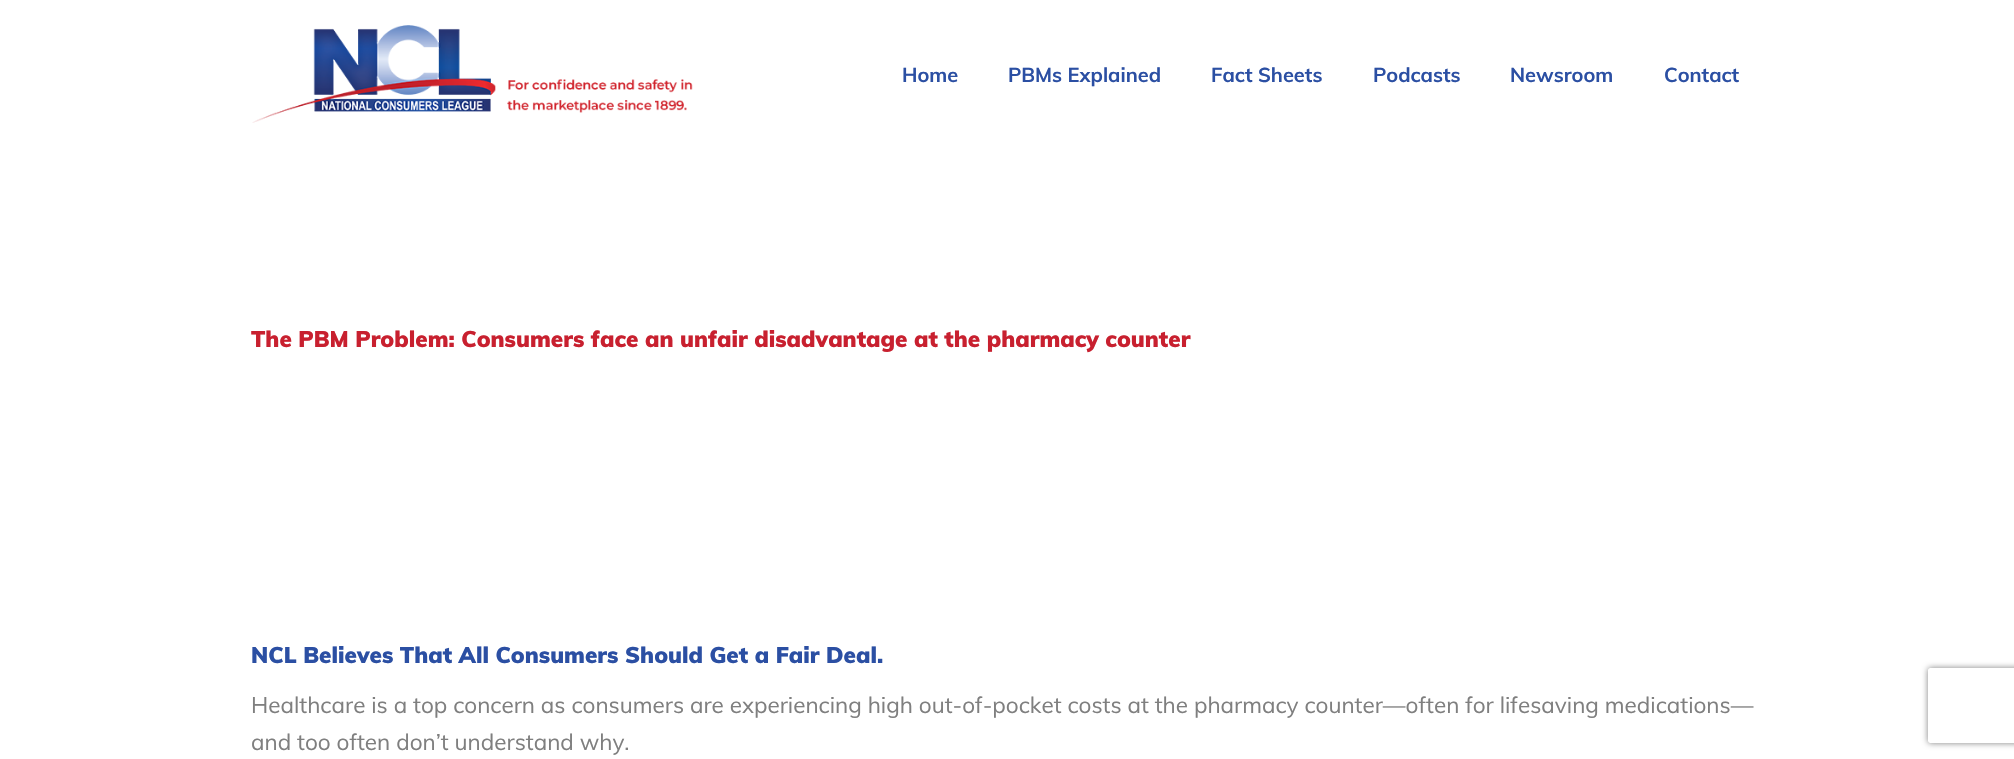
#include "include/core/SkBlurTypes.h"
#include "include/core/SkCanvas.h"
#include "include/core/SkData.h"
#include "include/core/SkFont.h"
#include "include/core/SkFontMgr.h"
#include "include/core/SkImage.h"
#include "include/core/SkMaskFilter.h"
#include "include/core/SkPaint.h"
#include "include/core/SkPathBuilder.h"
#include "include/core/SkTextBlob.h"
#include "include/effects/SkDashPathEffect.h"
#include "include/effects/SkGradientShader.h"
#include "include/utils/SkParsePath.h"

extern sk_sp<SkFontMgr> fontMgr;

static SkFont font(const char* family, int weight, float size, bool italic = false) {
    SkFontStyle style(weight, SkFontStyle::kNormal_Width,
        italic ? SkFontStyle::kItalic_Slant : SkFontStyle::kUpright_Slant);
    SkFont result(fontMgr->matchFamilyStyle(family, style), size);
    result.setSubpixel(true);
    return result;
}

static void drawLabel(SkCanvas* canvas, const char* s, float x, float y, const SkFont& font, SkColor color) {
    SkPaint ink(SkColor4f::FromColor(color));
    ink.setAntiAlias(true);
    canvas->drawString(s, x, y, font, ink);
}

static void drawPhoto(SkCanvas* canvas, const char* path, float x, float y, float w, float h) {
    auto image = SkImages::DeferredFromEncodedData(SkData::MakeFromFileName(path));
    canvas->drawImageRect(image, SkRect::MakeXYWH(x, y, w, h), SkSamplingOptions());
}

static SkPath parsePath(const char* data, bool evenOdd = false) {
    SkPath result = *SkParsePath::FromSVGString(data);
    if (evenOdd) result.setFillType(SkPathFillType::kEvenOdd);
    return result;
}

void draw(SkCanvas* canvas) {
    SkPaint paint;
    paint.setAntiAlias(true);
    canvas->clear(0xFFFFFFFF);
    drawPhoto(canvas, "assets/img1.png", 252, 25, 441, 98);
    SkFont font1 = font("Muli", 700, 20);
    drawLabel(canvas, "Home", 902, 82, font1, 0xFF2B4FA3);
    drawLabel(canvas, "PBMs Explained", 1008, 82, font1, 0xFF2B4FA3);
    drawLabel(canvas, "Fact Sheets", 1211, 82, font1, 0xFF2B4FA3);
    drawLabel(canvas, "Podcasts", 1373, 82, font1, 0xFF2B4FA3);
    drawLabel(canvas, "Newsroom", 1510, 82, font1, 0xFF2B4FA3);
    drawLabel(canvas, "Contact", 1664, 82, font1, 0xFF2B4FA3);
    SkFont font2 = font("Muli", 900, 22.5f);
    drawLabel(canvas, "The PBM Problem: Consumers face an unfair disadvantage at the pharmacy counter", 251, 347, font2, 0xFFC8202F);
    drawLabel(canvas, "NCL Believes That All Consumers Should Get a Fair Deal.", 251, 663, font2, 0xFF2B4FA3);
    SkFont font3 = font("Muli", 400, 22.5f);
    drawLabel(canvas, "Healthcare is a top concern as consumers are experiencing high out-of-pocket costs at the pharmacy counter—often for lifesaving medications—", 251, 713, font3, 0xFF7F7F7F);
    drawLabel(canvas, "and too often don’t understand why.", 251, 750, font3, 0xFF7F7F7F);
    canvas->save();
    canvas->clipPath(parsePath("M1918 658H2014V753H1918ZM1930.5 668H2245.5C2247 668 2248 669 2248 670.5V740.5C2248 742 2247 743 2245.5 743H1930.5C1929 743 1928 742 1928 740.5V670.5C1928 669 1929 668 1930.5 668Z", true), true);
    paint.setColor(0xFF808080);
    paint.setMaskFilter(SkMaskFilter::MakeBlur(kNormal_SkBlurStyle, 3));
    canvas->drawRoundRect(SkRect::MakeXYWH(1928, 668, 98, 75), 2.5f, 2.5f, paint);
    paint.setMaskFilter(nullptr);
    canvas->restore();
}
